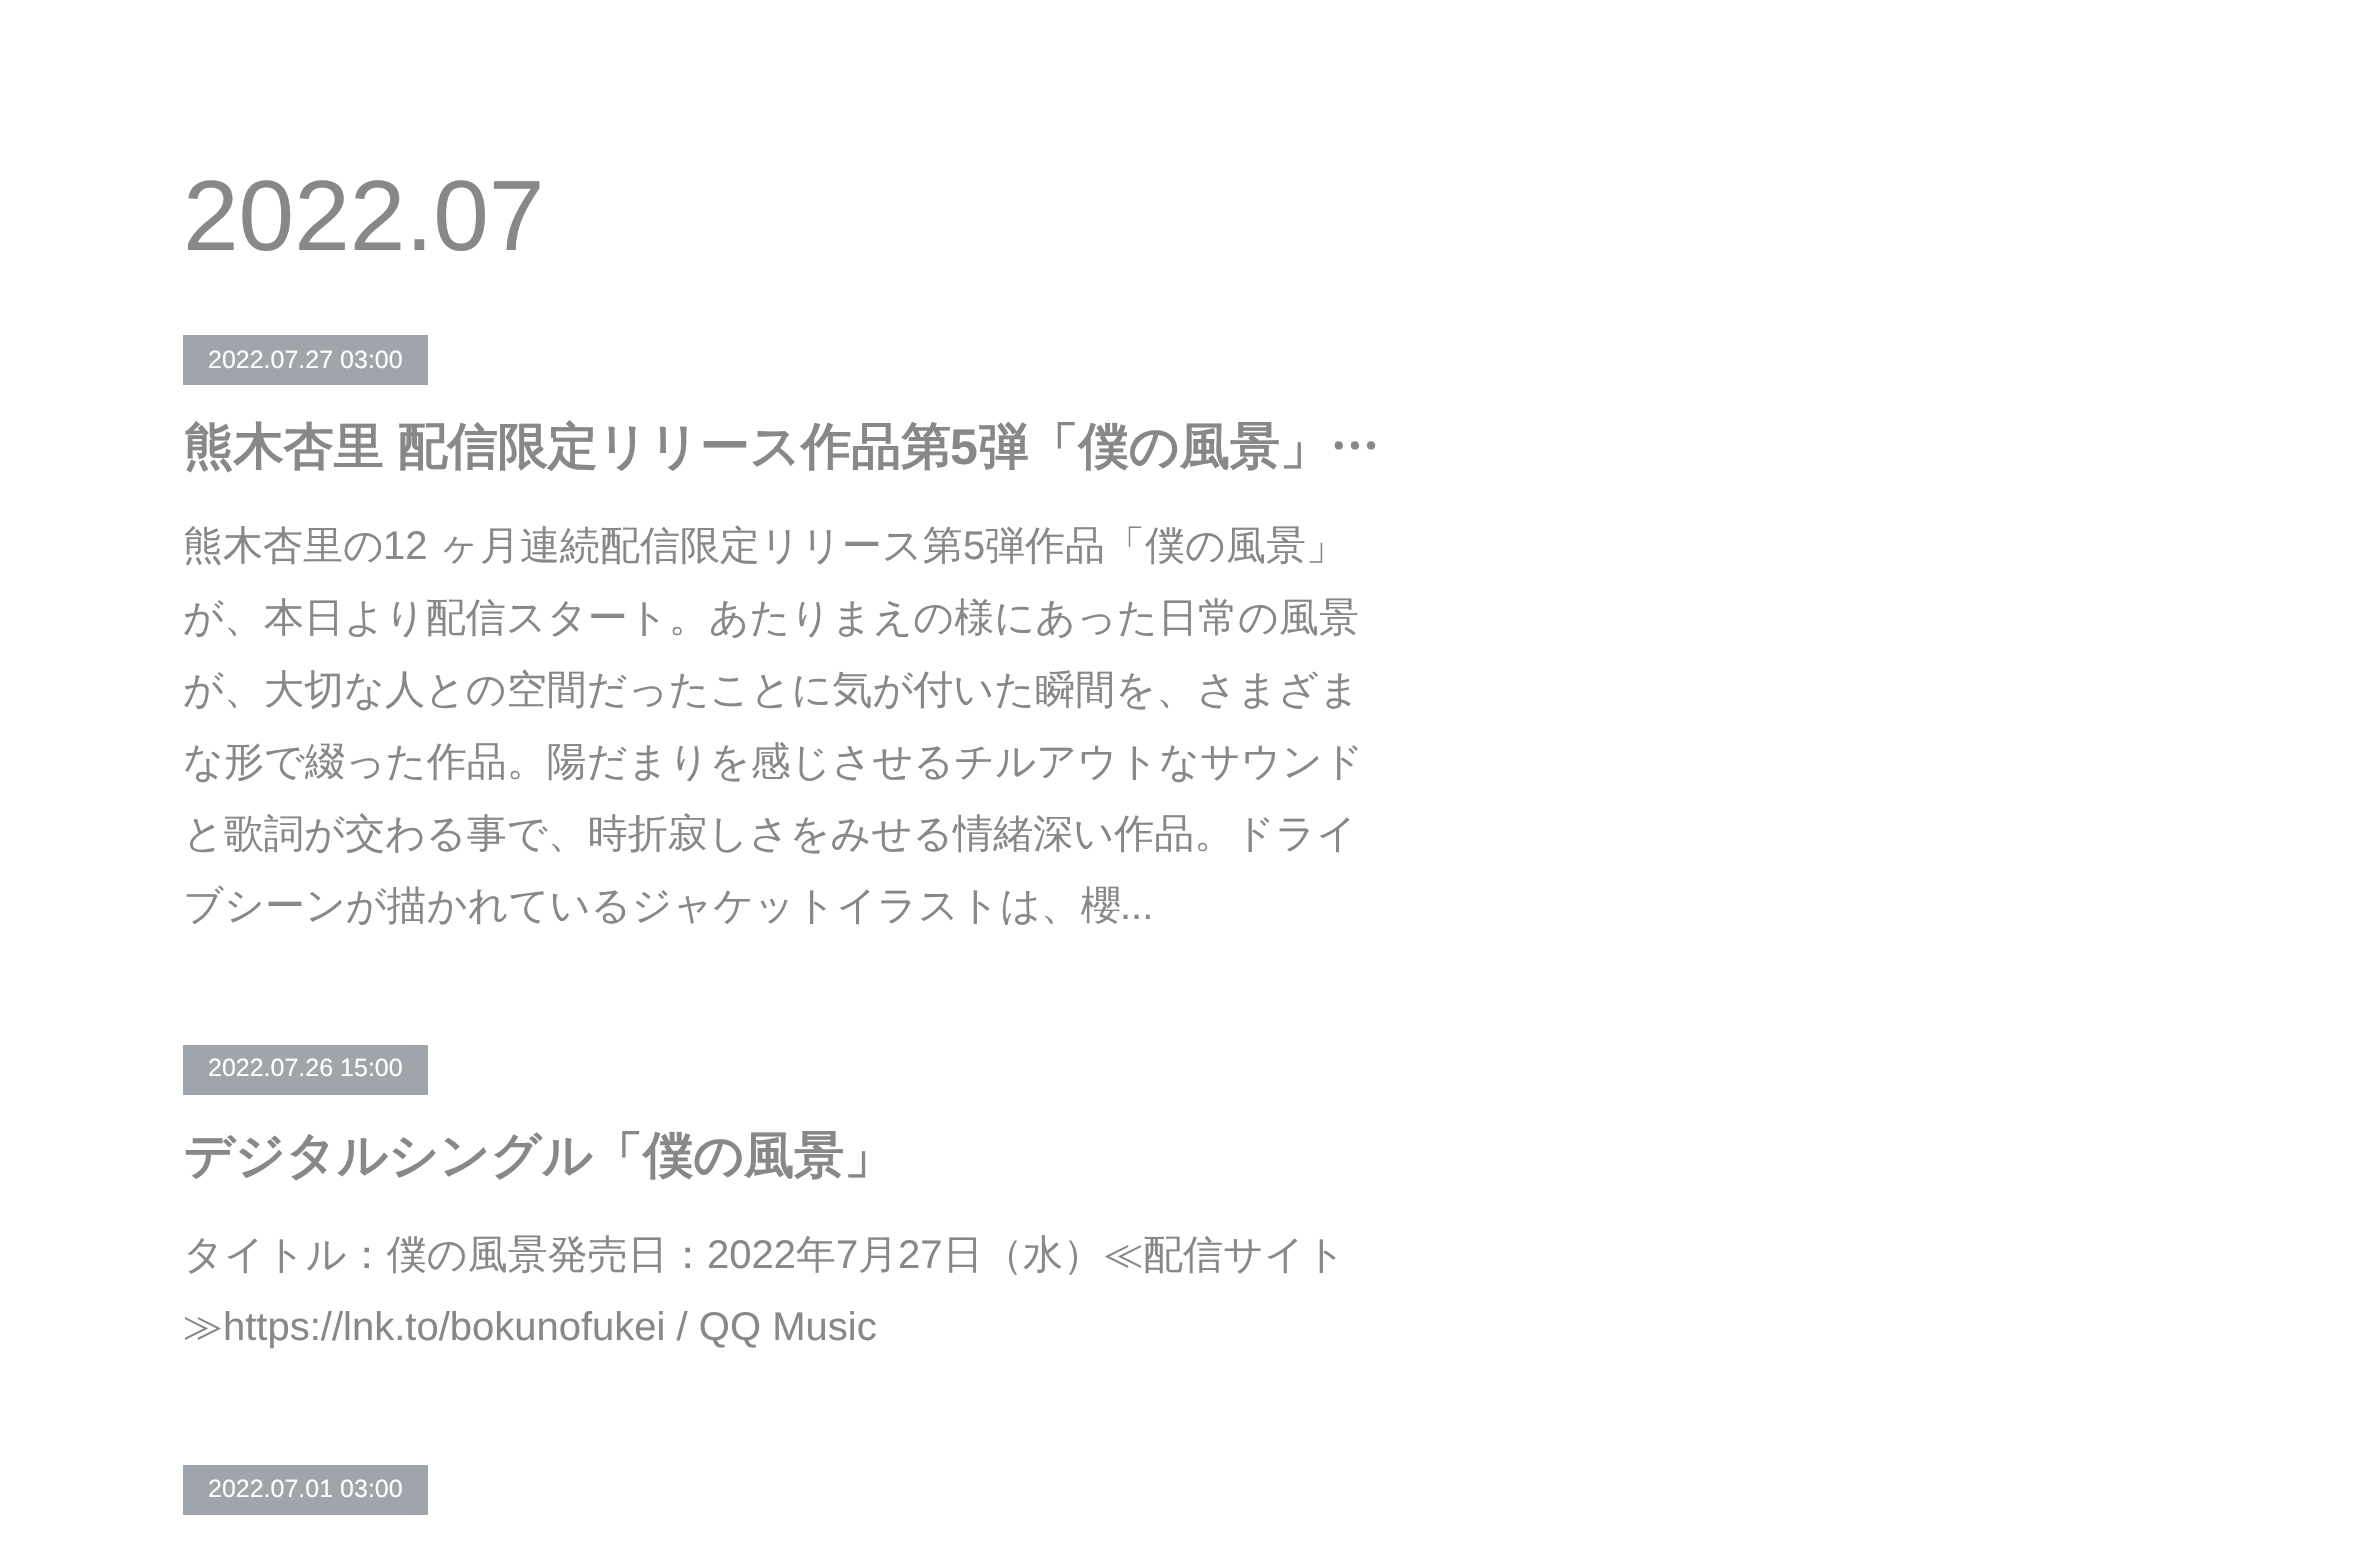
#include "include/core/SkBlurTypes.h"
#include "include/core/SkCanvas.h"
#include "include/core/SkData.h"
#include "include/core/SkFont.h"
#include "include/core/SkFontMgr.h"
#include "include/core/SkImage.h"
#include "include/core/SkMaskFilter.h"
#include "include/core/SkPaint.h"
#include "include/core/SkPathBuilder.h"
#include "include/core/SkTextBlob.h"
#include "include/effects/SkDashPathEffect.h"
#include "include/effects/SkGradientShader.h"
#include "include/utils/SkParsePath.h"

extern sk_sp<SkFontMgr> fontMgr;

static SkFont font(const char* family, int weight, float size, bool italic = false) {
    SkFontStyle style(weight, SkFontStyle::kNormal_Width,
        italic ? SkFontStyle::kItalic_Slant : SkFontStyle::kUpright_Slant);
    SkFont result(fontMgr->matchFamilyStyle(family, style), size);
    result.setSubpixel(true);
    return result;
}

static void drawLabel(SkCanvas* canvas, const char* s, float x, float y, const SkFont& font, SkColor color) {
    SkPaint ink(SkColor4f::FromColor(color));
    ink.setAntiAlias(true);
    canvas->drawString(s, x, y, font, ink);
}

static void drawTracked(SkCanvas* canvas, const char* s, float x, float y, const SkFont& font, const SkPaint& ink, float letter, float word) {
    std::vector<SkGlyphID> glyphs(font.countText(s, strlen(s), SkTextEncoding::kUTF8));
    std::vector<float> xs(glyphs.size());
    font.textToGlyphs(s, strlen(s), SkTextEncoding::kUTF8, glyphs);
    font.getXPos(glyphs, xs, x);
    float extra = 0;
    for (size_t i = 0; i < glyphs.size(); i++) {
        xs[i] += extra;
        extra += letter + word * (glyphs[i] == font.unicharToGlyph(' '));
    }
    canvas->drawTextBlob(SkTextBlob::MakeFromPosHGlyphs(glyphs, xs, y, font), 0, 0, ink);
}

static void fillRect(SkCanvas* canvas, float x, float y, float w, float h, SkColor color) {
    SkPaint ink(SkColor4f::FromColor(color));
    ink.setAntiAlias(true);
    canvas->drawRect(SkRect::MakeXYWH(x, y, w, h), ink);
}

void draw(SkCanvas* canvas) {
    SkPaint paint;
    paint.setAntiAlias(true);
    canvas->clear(0xFFFFFFFF);
    SkFont font1 = font("Liberation Sans", 400, 100);
    drawLabel(canvas, "2022.07", 183, 250, font1, 0xFF888888);
    fillRect(canvas, 183, 335, 245, 50, 0xFF9FA5AA);
    SkFont font2 = font("Liberation Sans", 400, 25);
    drawLabel(canvas, "2022.07.27 03:00", 208, 368, font2, 0xFFFFFFFF);
    SkFont font3 = font("WenQuanYi Zen Hei", 700, 50);
    paint.setColor(0xFF888888);
    drawTracked(canvas, "熊⽊杏⾥ 配信限定リリース作品第", 183, 464, font3, paint, 0, -1);
    SkFont font4 = font("Liberation Sans", 700, 50);
    drawLabel(canvas, "5", 950, 464, font4, 0xFF888888);
    drawTracked(canvas, "弾「僕の風景」…", 978, 464, font3, paint, 0, -1);
    SkFont font5 = font("WenQuanYi Zen Hei", 500, 40);
    drawLabel(canvas, "熊⽊杏⾥の", 183, 559, font5, 0xFF888888);
    SkFont font6 = font("Liberation Sans", 400, 40);
    drawLabel(canvas, "12", 383, 559, font6, 0xFF888888);
    drawLabel(canvas, "ヶ⽉連続配信限定リリース第", 439, 559, font5, 0xFF888888);
    drawLabel(canvas, "5", 963, 559, font6, 0xFF888888);
    drawLabel(canvas, "弾作品「僕の風景」", 985, 559, font5, 0xFF888888);
    drawLabel(canvas, "が、本⽇より配信スタート。あたりまえの様にあった日常の風景", 183, 631, font5, 0xFF888888);
    drawLabel(canvas, "が、大切な人との空間だったことに気が付いた瞬間を、さまざま", 183, 703, font5, 0xFF888888);
    drawLabel(canvas, "な形で綴った作品。陽だまりを感じさせるチルアウトなサウンド", 183, 775, font5, 0xFF888888);
    drawLabel(canvas, "と歌詞が交わる事で、時折寂しさをみせる情緒深い作品。ドライ", 183, 847, font5, 0xFF888888);
    drawLabel(canvas, "ブシーンが描かれているジャケットイラストは、櫻", 183, 919, font5, 0xFF888888);
    drawLabel(canvas, "...", 1120, 919, font6, 0xFF888888);
    fillRect(canvas, 183, 1045, 245, 50, 0xFF9FA5AA);
    drawLabel(canvas, "2022.07.26 15:00", 208, 1076, font2, 0xFFFFFFFF);
    drawLabel(canvas, "デジタルシングル「僕の風景」", 183, 1173, font3, 0xFF888888);
    drawLabel(canvas, "タイトル：僕の風景発売日：", 183, 1268, font5, 0xFF888888);
    drawLabel(canvas, "2022", 707, 1268, font6, 0xFF888888);
    drawLabel(canvas, "年", 796, 1268, font5, 0xFF888888);
    drawLabel(canvas, "7", 836, 1268, font6, 0xFF888888);
    drawLabel(canvas, "月", 858, 1268, font5, 0xFF888888);
    drawLabel(canvas, "27", 898, 1268, font6, 0xFF888888);
    drawLabel(canvas, "日（水）≪配信サイト", 943, 1268, font5, 0xFF888888);
    drawLabel(canvas, "≫", 183, 1340, font5, 0xFF888888);
    drawLabel(canvas, "https://lnk.to/bokunofukei / QQ Music", 223, 1340, font6, 0xFF888888);
    fillRect(canvas, 183, 1465, 245, 50, 0xFF9FA5AA);
    drawLabel(canvas, "2022.07.01 03:00", 208, 1497, font2, 0xFFFFFFFF);
}
